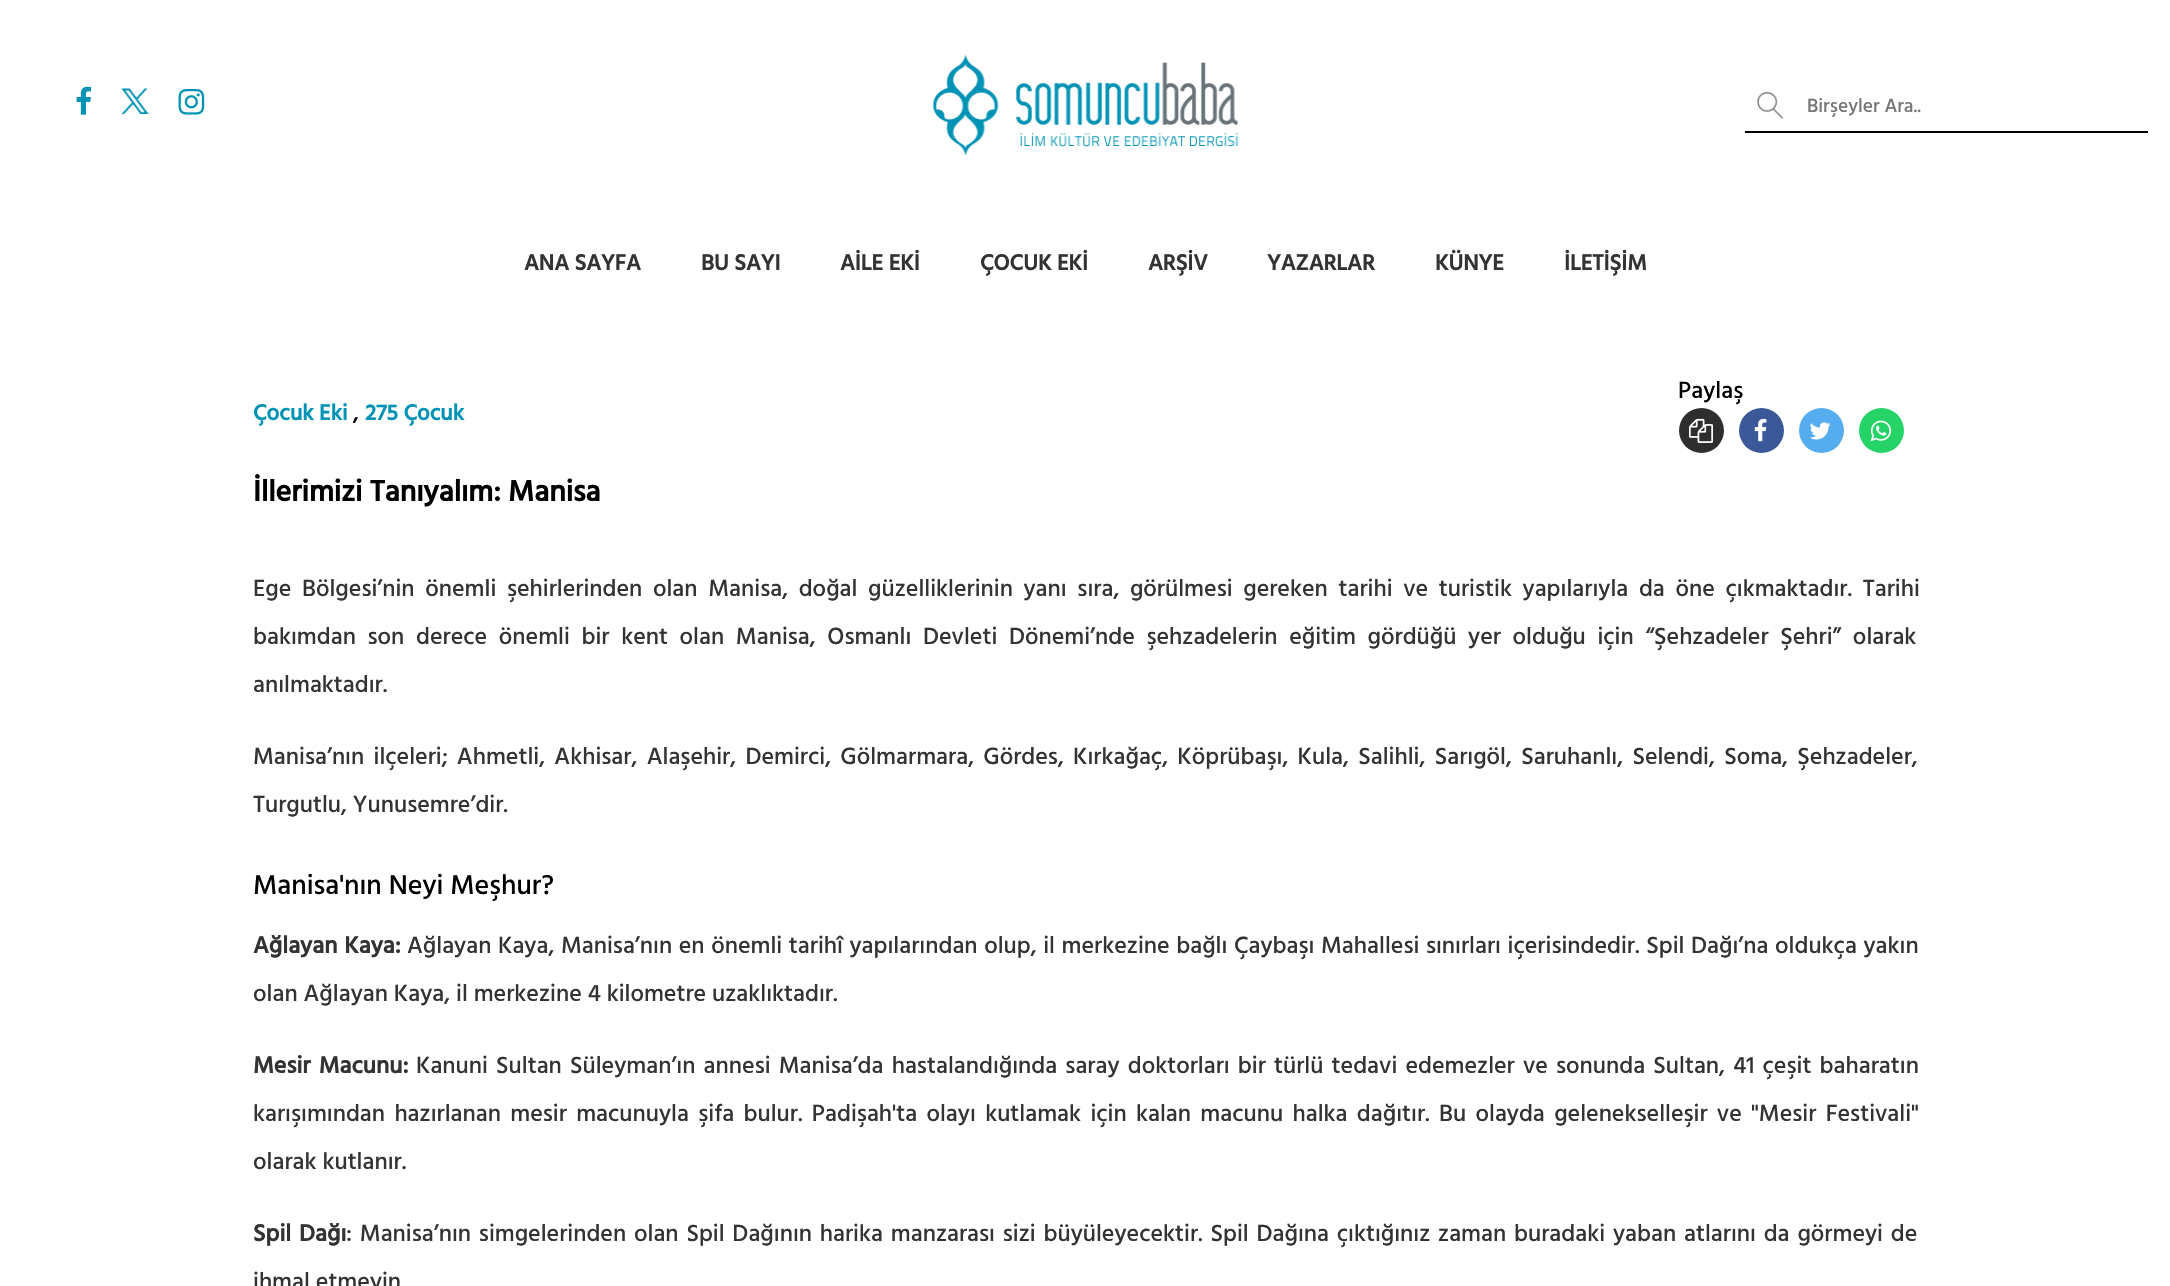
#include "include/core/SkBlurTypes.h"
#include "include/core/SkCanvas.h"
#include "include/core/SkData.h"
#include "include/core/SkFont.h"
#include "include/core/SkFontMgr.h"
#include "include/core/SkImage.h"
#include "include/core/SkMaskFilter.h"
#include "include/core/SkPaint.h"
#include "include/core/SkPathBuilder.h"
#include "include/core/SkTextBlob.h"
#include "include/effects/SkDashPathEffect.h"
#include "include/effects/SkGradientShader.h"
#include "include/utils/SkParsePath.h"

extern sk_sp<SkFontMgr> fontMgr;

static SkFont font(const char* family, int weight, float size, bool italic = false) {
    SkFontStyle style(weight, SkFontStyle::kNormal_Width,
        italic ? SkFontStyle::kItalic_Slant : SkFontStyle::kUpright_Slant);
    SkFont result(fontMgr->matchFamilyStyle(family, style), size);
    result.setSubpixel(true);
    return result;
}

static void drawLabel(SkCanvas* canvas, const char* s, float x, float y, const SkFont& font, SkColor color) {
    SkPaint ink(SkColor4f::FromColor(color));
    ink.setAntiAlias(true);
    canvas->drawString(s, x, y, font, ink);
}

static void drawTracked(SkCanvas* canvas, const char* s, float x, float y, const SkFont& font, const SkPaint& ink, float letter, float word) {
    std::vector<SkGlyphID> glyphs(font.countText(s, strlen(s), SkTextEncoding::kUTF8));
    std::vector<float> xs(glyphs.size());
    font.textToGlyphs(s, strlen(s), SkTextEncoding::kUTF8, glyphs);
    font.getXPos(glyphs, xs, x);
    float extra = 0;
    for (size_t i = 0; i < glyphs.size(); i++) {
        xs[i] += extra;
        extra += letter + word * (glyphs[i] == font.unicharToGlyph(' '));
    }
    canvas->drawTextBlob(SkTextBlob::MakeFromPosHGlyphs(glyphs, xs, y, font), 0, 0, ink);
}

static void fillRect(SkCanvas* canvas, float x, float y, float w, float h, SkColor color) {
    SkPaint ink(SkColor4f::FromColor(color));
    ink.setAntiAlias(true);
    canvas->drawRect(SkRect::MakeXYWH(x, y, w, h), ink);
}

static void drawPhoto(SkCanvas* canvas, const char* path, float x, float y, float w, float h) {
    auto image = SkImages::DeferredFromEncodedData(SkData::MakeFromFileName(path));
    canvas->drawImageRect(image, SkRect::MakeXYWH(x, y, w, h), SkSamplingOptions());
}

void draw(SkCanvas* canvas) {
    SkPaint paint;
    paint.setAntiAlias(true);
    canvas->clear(0xFFFFFFFF);
    drawPhoto(canvas, "assets/img1.png", 76, 86, 16, 29);
    drawPhoto(canvas, "assets/img2.png", 121, 88, 28, 26);
    drawPhoto(canvas, "assets/img3.png", 178, 88, 27, 27);
    drawPhoto(canvas, "assets/img4.png", 933, 54, 305, 102);
    fillRect(canvas, 1745, 131, 403, 2, 0xFF000000);
    drawPhoto(canvas, "assets/img5.png", 1756, 91, 28, 28);
    SkFont font1 = font("Hind Madurai", 500, 19.5f);
    drawLabel(canvas, "Birşeyler Ara..", 1807, 112, font1, 0xFF757575);
    SkFont font2 = font("Hind Madurai", 700, 22.5f);
    drawLabel(canvas, "ANA SAYFA", 524, 270, font2, 0xFF333333);
    drawLabel(canvas, "BU SAYI", 701, 270, font2, 0xFF333333);
    drawLabel(canvas, "AİLE EKİ", 840, 270, font2, 0xFF333333);
    drawLabel(canvas, "ÇOCUK EKİ", 980, 270, font2, 0xFF333333);
    drawLabel(canvas, "ARŞİV", 1148, 270, font2, 0xFF333333);
    drawLabel(canvas, "YAZARLAR", 1267, 270, font2, 0xFF333333);
    drawLabel(canvas, "KÜNYE", 1435, 270, font2, 0xFF333333);
    drawLabel(canvas, "İLETİŞİM", 1564, 270, font2, 0xFF333333);
    SkFont font3 = font("Hind Madurai", 500, 24);
    drawLabel(canvas, "Paylaş", 1678, 398, font3, 0xFF000000);
    paint.setColor(0xFF2E2E2E);
    canvas->drawCircle(1701.5f, 430.5f, 22.5f, paint);
    drawPhoto(canvas, "assets/img6.png", 1689, 418, 24, 25);
    paint.setColor(0xFF3B5998);
    canvas->drawCircle(1761.5f, 430.5f, 22.5f, paint);
    drawPhoto(canvas, "assets/img7.png", 1754, 418, 13, 24);
    paint.setColor(0xFF55ACEE);
    canvas->drawCircle(1821.5f, 430.5f, 22.5f, paint);
    drawPhoto(canvas, "assets/img8.png", 1809, 422, 22, 18);
    paint.setColor(0xFF25D366);
    canvas->drawCircle(1881.5f, 430.5f, 22.5f, paint);
    drawPhoto(canvas, "assets/img9.png", 1870, 420, 22, 22);
    drawLabel(canvas, "Çocuk Eki", 253, 420, font2, 0xFF0193B5);
    drawLabel(canvas, ",", 353, 420, font3, 0xFF000000);
    drawLabel(canvas, "275 Çocuk", 365, 420, font2, 0xFF0193B5);
    SkFont font4 = font("Hind Madurai", 700, 30);
    drawLabel(canvas, "İllerimizi Tanıyalım: Manisa", 253, 501, font4, 0xFF000000);
    paint.setColor(0xFF333333);
    drawTracked(canvas, "Ege Bölgesi’nin önemli şehirlerinden olan Manisa, doğal güzelliklerinin yanı sıra, görülmesi gereken tarihi ve turistik yapılarıyla da öne çıkmaktadır. Tarihi", 253, 596, font3, paint, 0, 4.75f);
    drawTracked(canvas, "bakımdan son derece önemli bir kent olan Manisa, Osmanlı Devleti Dönemi’nde şehzadelerin eğitim gördüğü yer olduğu için “Şehzadeler Şehri” olarak", 253, 644, font3, paint, 0, 5.75f);
    drawLabel(canvas, "anılmaktadır.", 253, 692, font3, 0xFF333333);
    drawTracked(canvas, "Manisa’nın ilçeleri; Ahmetli, Akhisar, Alaşehir, Demirci, Gölmarmara, Gördes, Kırkağaç, Köprübaşı, Kula, Salihli, Sarıgöl, Saruhanlı, Selendi, Soma, Şehzadeler,", 253, 764, font3, paint, 0, 3.4f);
    drawLabel(canvas, "Turgutlu, Yunusemre’dir.", 253, 812, font3, 0xFF333333);
    SkFont font5 = font("Hind Madurai", 500, 28);
    drawLabel(canvas, "Manisa'nın Neyi Meşhur?", 253, 894, font5, 0xFF000000);
    SkFont font6 = font("Hind Madurai", 700, 24);
    drawTracked(canvas, "Ağlayan Kaya:", 253, 953, font6, paint, 0, 1);
    drawTracked(canvas, "Ağlayan Kaya, Manisa’nın en önemli tarihî yapılarından olup, il merkezine bağlı Çaybaşı Mahallesi sınırları içerisindedir. Spil Dağı’na oldukça yakın", 407, 953, font3, paint, 0, 0.7f);
    drawLabel(canvas, "olan Ağlayan Kaya, il merkezine 4 kilometre uzaklıktadır.", 253, 1001, font3, 0xFF333333);
    drawTracked(canvas, "Mesir Macunu:", 253, 1073, font6, paint, 0, 2.25f);
    drawTracked(canvas, "Kanuni Sultan Süleyman’ın annesi Manisa’da hastalandığında saray doktorları bir türlü tedavi edemezler ve sonunda Sultan, 41 çeşit baharatın", 416, 1073, font3, paint, 0, 2.25f);
    drawTracked(canvas, "karışımından hazırlanan mesir macunuyla şifa bulur. Padişah'ta olayı kutlamak için kalan macunu halka dağıtır. Bu olayda gelenekselleşir ve \"Mesir Festivali\"", 253, 1121, font3, paint, 0, 3.4f);
    drawLabel(canvas, "olarak kutlanır.", 253, 1169, font3, 0xFF333333);
    drawTracked(canvas, "Spil Dağı", 253, 1241, font6, paint, 0, 2);
    drawTracked(canvas, ": Manisa’nın simgelerinden olan Spil Dağının harika manzarası sizi büyüleyecektir. Spil Dağına çıktığınız zaman buradaki yaban atlarını da görmeyi de", 346, 1241, font3, paint, 0, 1.9f);
    drawLabel(canvas, "ihmal etmeyin", 253, 1289, font3, 0xFF333333);
}
